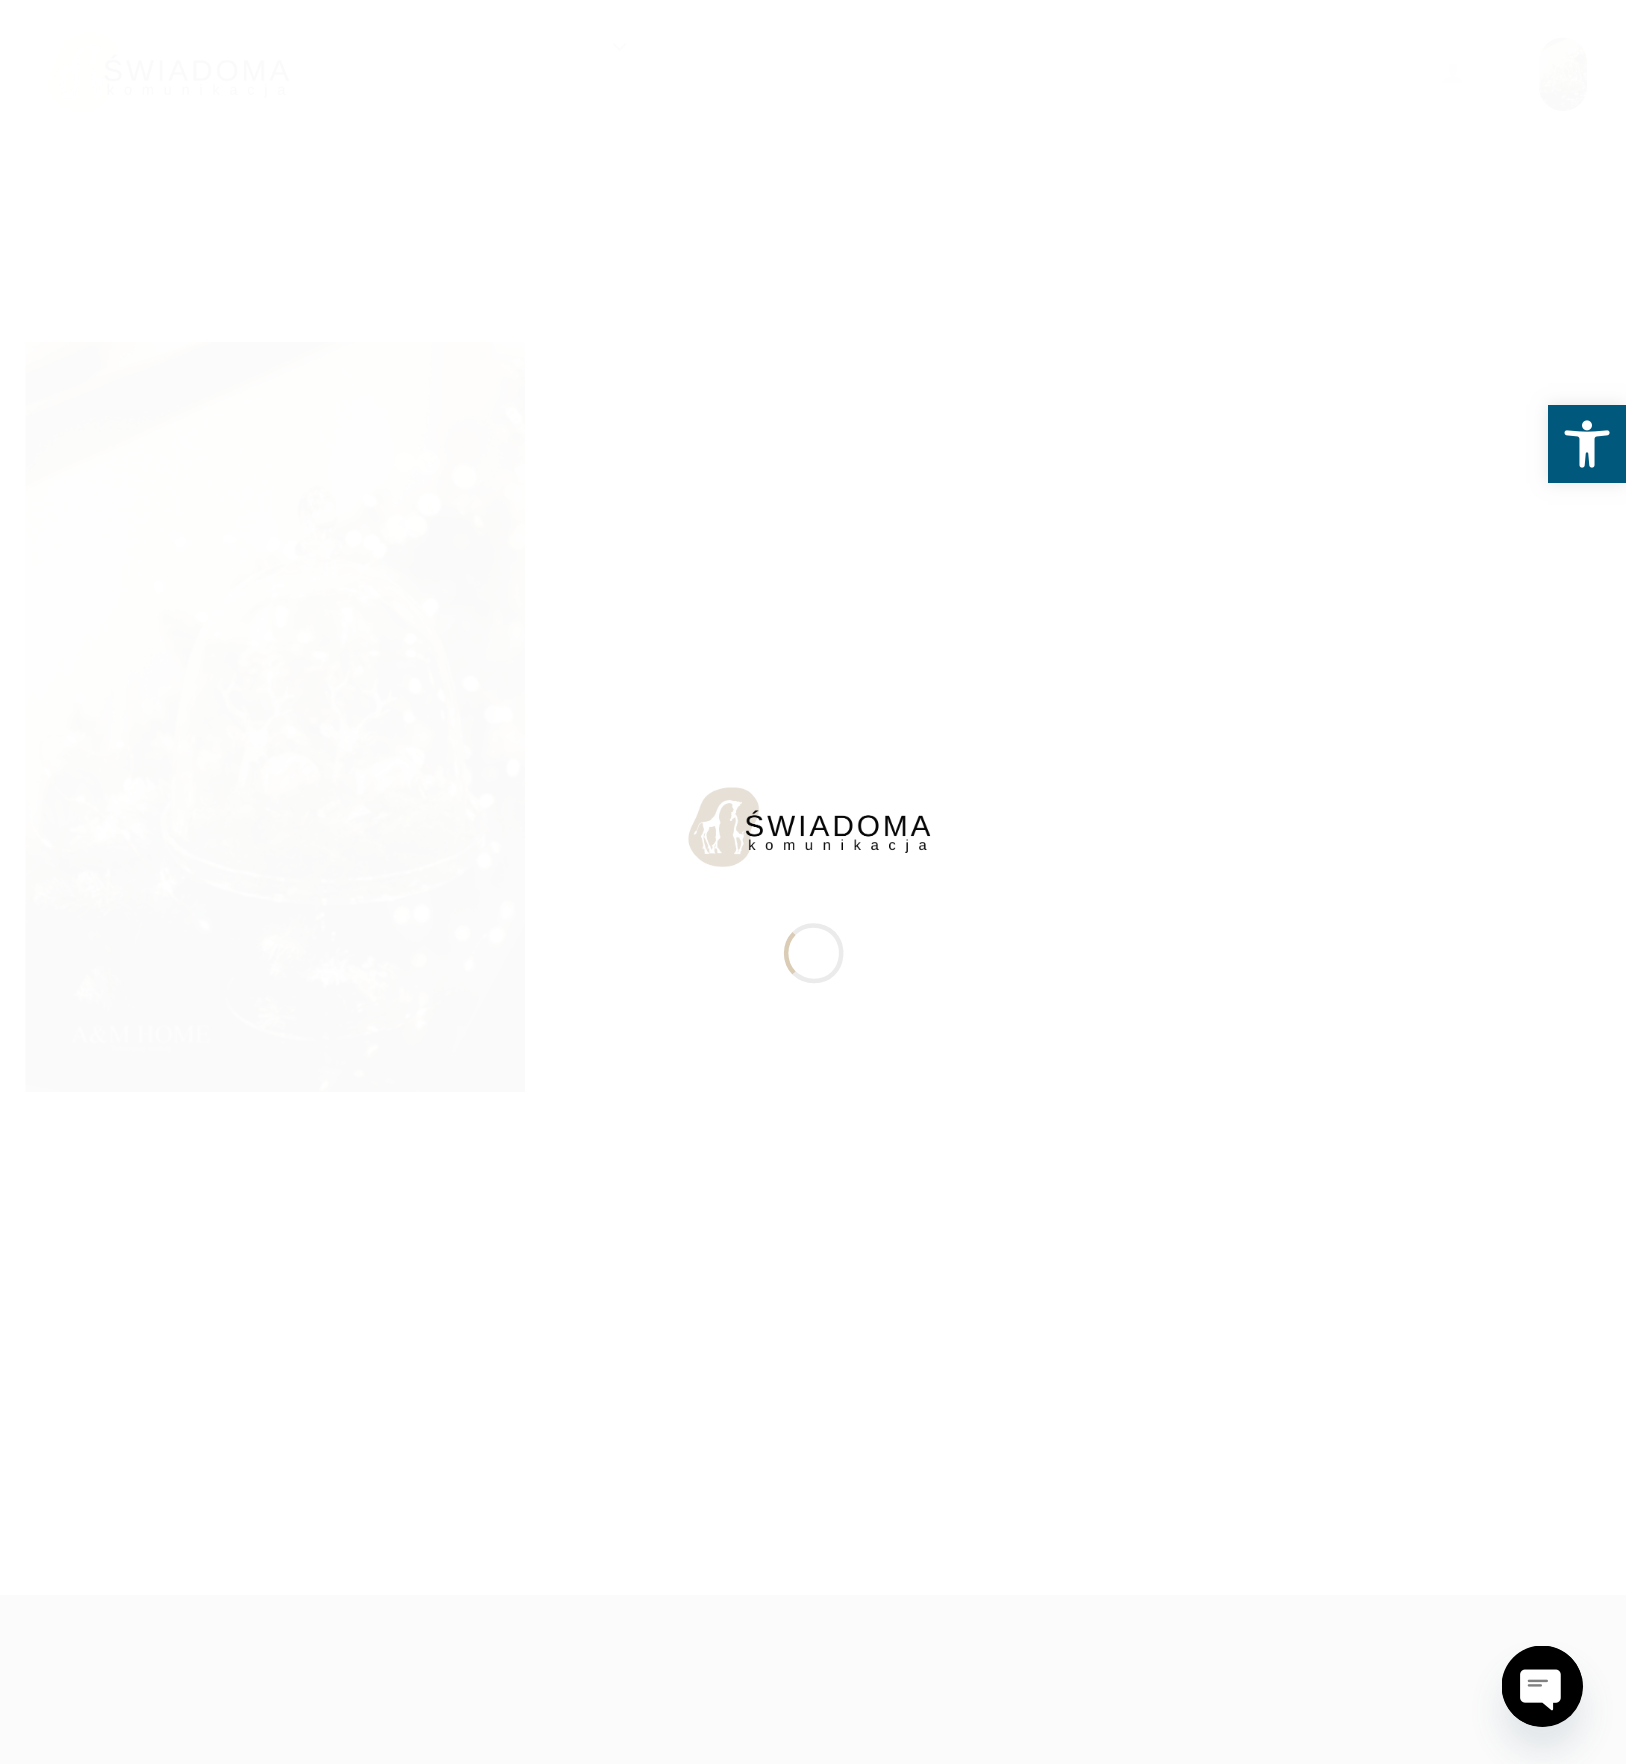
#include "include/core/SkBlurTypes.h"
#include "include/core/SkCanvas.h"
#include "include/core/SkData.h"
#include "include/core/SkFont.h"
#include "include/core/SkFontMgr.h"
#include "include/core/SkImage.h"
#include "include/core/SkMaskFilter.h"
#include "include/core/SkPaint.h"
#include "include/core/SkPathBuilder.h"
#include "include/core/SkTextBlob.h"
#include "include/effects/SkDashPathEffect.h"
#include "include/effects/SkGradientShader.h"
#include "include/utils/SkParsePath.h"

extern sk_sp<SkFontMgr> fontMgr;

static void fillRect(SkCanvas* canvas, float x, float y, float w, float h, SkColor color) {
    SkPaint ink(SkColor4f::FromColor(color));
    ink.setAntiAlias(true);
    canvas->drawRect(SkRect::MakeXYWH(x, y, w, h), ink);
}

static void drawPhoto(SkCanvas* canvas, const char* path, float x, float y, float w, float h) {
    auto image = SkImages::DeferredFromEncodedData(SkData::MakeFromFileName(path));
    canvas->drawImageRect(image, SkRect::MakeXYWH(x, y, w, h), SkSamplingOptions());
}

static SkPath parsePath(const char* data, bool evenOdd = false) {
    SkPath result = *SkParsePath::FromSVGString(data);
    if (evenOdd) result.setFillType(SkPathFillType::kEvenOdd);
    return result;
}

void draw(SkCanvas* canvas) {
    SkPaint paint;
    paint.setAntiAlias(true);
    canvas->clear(0xFFFBFBFB);
    fillRect(canvas, 0, 0, 1626, 1595, 0xFFFFFFFF);
    drawPhoto(canvas, "assets/img1.png", 47, 32, 242, 80);
    drawPhoto(canvas, "assets/img2.png", 613, 43, 14, 8);
    drawPhoto(canvas, "assets/img3.png", 1443, 63, 20, 20);
    drawPhoto(canvas, "assets/img4.png", 1539, 37, 48, 74);
    drawPhoto(canvas, "assets/img5.png", 25, 342, 500, 750);
    drawPhoto(canvas, "assets/img6.png", 688, 787, 243, 80);
    paint.setStroke(true);
    paint.setStrokeWidth(4.5f);
    paint.setColor(0xFFEBEBEB);
    canvas->drawPath(parsePath("M794 933.5C800.5 927 810 924.5 819 926C851.5 932.5 847 981 814 981C806.5 981 799.5 978 794 973"), paint);
    paint.setColor(0xFFDACCB5);
    canvas->drawPath(parsePath("M794 973C783.5 962 783.5 944.5 794 933.5"), paint);
    paint.setStroke(false);
    paint.setColor(0x1A000000);
    paint.setMaskFilter(SkMaskFilter::MakeBlur(kNormal_SkBlurStyle, 7.5f));
    canvas->drawRect(SkRect::MakeXYWH(1548, 405, 78, 78), paint);
    paint.setMaskFilter(nullptr);
    fillRect(canvas, 1548, 405, 78, 78, 0xFF00587C);
    drawPhoto(canvas, "assets/img7.png", 1564, 420, 46, 48);
    paint.setColor(0x2949687E);
    paint.setMaskFilter(SkMaskFilter::MakeBlur(kNormal_SkBlurStyle, 18));
    canvas->drawRoundRect(SkRect::MakeXYWH(1502, 1670, 81, 81), 40.5f, 40.5f, paint);
    paint.setMaskFilter(nullptr);
    paint.setColor(0xFF000000);
    canvas->drawCircle(1542.5f, 1686.5f, 40.5f, paint);
    drawPhoto(canvas, "assets/img8.png", 1502, 1646, 81, 81);
}
